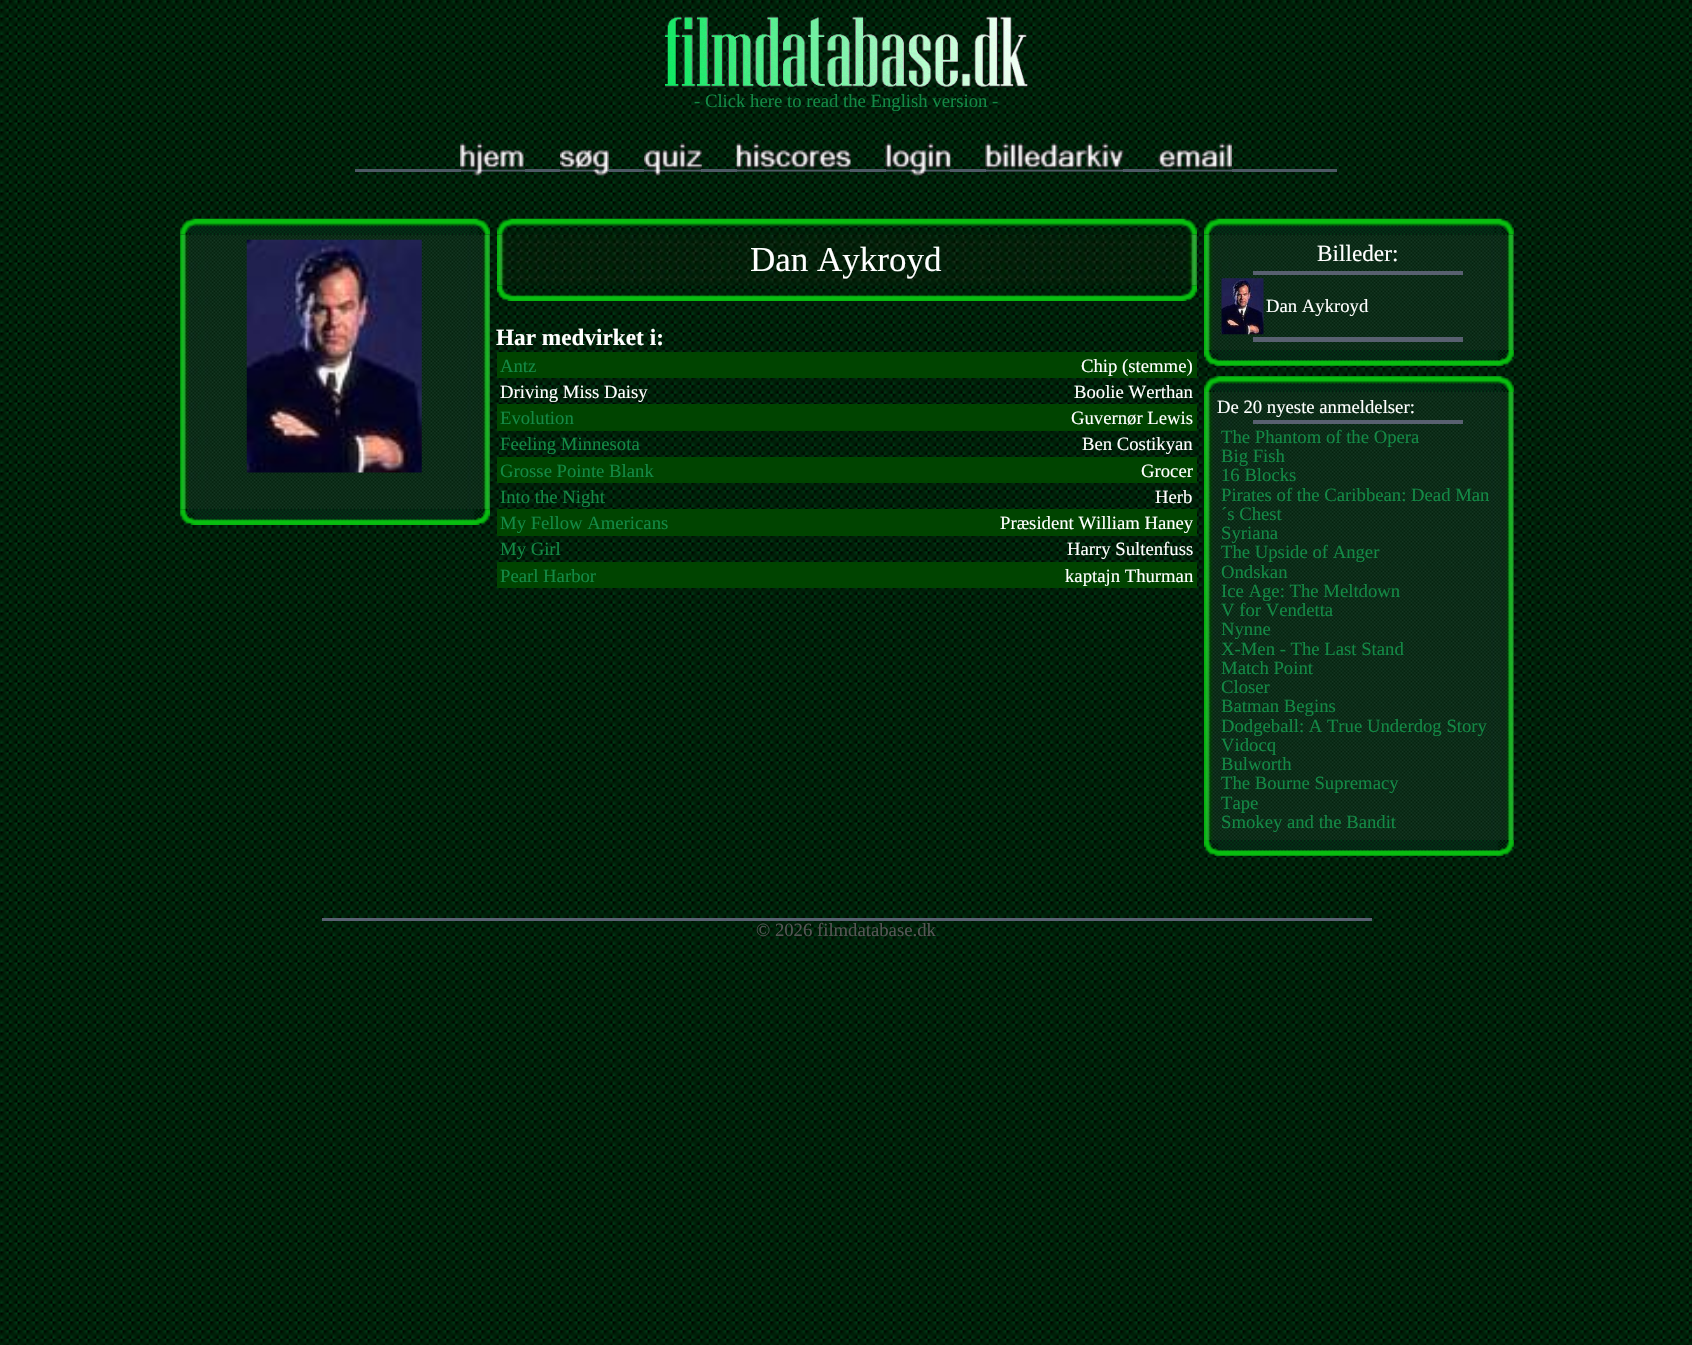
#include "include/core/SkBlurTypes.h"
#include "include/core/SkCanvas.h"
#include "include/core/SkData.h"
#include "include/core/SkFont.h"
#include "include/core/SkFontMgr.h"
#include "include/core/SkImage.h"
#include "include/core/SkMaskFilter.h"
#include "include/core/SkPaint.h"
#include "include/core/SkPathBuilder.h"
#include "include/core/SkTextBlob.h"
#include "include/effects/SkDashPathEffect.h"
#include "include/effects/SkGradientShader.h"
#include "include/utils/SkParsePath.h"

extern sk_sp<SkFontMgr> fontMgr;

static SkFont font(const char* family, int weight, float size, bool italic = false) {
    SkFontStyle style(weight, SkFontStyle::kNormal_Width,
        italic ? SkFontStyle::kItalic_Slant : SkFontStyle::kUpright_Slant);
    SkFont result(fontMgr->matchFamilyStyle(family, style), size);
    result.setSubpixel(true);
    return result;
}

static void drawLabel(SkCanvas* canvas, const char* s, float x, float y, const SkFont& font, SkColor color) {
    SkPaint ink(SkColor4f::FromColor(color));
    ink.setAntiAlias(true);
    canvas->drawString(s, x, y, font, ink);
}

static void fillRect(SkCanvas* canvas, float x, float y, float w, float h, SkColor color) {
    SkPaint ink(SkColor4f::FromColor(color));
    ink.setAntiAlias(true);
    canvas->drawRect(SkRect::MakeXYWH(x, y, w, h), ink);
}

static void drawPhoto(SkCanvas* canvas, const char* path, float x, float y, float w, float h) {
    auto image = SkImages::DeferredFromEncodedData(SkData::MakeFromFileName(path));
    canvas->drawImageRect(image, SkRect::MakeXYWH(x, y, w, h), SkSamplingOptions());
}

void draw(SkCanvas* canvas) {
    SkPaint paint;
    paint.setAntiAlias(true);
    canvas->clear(0xFFFFFFFF);
    drawPhoto(canvas, "assets/img1.png", 0, 0, 1692, 1345);
    drawPhoto(canvas, "assets/img2.png", 665, 16, 363, 71);
    SkFont font1 = font("Liberation Serif", 400, 18.7f);
    drawLabel(canvas, "- Click here to read the English version -", 694, 107, font1, 0xFF138945);
    fillRect(canvas, 355, 169, 36, 3, 0xDE586070);
    fillRect(canvas, 390, 169, 36, 3, 0xDE586070);
    fillRect(canvas, 425, 169, 36, 3, 0xDE586070);
    drawPhoto(canvas, "assets/img3.png", 460, 143, 65, 33);
    fillRect(canvas, 525, 169, 35, 3, 0xDE586070);
    drawPhoto(canvas, "assets/img4.png", 560, 148, 49, 28);
    fillRect(canvas, 609, 169, 35, 3, 0xDE586070);
    drawPhoto(canvas, "assets/img5.png", 644, 143, 58, 33);
    fillRect(canvas, 701, 169, 36, 3, 0xDE586070);
    drawPhoto(canvas, "assets/img6.png", 736, 143, 115, 29);
    fillRect(canvas, 850, 169, 36, 3, 0xDE586070);
    drawPhoto(canvas, "assets/img7.png", 885, 143, 66, 33);
    fillRect(canvas, 950, 169, 36, 3, 0xDE586070);
    drawPhoto(canvas, "assets/img8.png", 985, 143, 139, 29);
    fillRect(canvas, 1123, 169, 36, 3, 0xDE586070);
    drawPhoto(canvas, "assets/img9.png", 1158, 143, 74, 29);
    fillRect(canvas, 1232, 169, 35, 3, 0xDE586070);
    fillRect(canvas, 1267, 169, 35, 3, 0xDE586070);
    fillRect(canvas, 1302, 169, 35, 3, 0xDE586070);
    drawPhoto(canvas, "assets/img11.png", 180, 234, 310, 276);
    drawPhoto(canvas, "assets/img10.png", 180, 218, 310, 17);
    drawPhoto(canvas, "assets/img12.png", 246, 239, 176, 234);
    drawPhoto(canvas, "assets/img13.png", 180, 509, 310, 16);
    drawPhoto(canvas, "assets/img15.png", 497, 234, 700, 52);
    drawPhoto(canvas, "assets/img14.png", 497, 218, 700, 17);
    SkFont font2 = font("Liberation Serif", 400, 35);
    drawLabel(canvas, "Dan Aykroyd", 750, 271, font2, 0xFFFFFFFF);
    drawPhoto(canvas, "assets/img16.png", 497, 285, 700, 16);
    SkFont font3 = font("Liberation Serif", 700, 23.25f);
    drawLabel(canvas, "Har medvirket i:", 496, 345, font3, 0xFFFFFFFF);
    fillRect(canvas, 497, 352, 700, 26, 0xFF004400);
    drawLabel(canvas, "Antz", 500, 372, font1, 0xFF138945);
    drawLabel(canvas, "Chip (stemme)", 1081, 372, font1, 0xFFFFFFFF);
    drawLabel(canvas, "Driving Miss Daisy", 500, 398, font1, 0xFFFFFFFF);
    drawLabel(canvas, "Boolie Werthan", 1074, 398, font1, 0xFFFFFFFF);
    fillRect(canvas, 497, 404, 700, 27, 0xFF004400);
    drawLabel(canvas, "Evolution", 500, 424, font1, 0xFF138945);
    drawLabel(canvas, "Guvernør Lewis", 1071, 424, font1, 0xFFFFFFFF);
    drawLabel(canvas, "Feeling Minnesota", 500, 450, font1, 0xFF138945);
    drawLabel(canvas, "Ben Costikyan", 1082, 450, font1, 0xFFFFFFFF);
    fillRect(canvas, 497, 457, 700, 26, 0xFF004400);
    drawLabel(canvas, "Grosse Pointe Blank", 500, 477, font1, 0xFF138945);
    drawLabel(canvas, "Grocer", 1141, 477, font1, 0xFFFFFFFF);
    drawLabel(canvas, "Into the Night", 500, 503, font1, 0xFF138945);
    drawLabel(canvas, "Herb", 1155, 503, font1, 0xFFFFFFFF);
    fillRect(canvas, 497, 509, 700, 27, 0xFF004400);
    drawLabel(canvas, "My Fellow Americans", 500, 529, font1, 0xFF138945);
    drawLabel(canvas, "Præsident William Haney", 1000, 529, font1, 0xFFFFFFFF);
    drawLabel(canvas, "My Girl", 500, 555, font1, 0xFF138945);
    drawLabel(canvas, "Harry Sultenfuss", 1067, 555, font1, 0xFFFFFFFF);
    fillRect(canvas, 497, 562, 700, 26, 0xFF004400);
    drawLabel(canvas, "Pearl Harbor", 500, 582, font1, 0xFF138945);
    drawLabel(canvas, "kaptajn Thurman", 1065, 582, font1, 0xFFFFFFFF);
    drawPhoto(canvas, "assets/img18.png", 1204, 234, 310, 116);
    drawPhoto(canvas, "assets/img17.png", 1204, 218, 310, 17);
    SkFont font4 = font("Liberation Serif", 400, 23.25f);
    drawLabel(canvas, "Billeder:", 1317, 261, font4, 0xFFFFFFFF);
    fillRect(canvas, 1253, 271, 210, 4, 0xFF586070);
    drawPhoto(canvas, "assets/img19.png", 1221, 278, 43, 57);
    drawLabel(canvas, "Dan Aykroyd", 1266, 312, font1, 0xFFFFFFFF);
    fillRect(canvas, 1253, 337, 210, 5, 0xFF586070);
    drawPhoto(canvas, "assets/img20.png", 1204, 350, 310, 16);
    drawPhoto(canvas, "assets/img21.png", 1204, 376, 310, 16);
    drawPhoto(canvas, "assets/img22.png", 1204, 392, 310, 448);
    drawLabel(canvas, "De 20 nyeste anmeldelser:", 1217, 413, font1, 0xFFFFFFFF);
    fillRect(canvas, 1253, 420, 210, 4, 0xFF586070);
    drawLabel(canvas, "The Phantom of the Opera", 1221, 443, font1, 0xFF138945);
    drawLabel(canvas, "Big Fish", 1221, 462, font1, 0xFF138945);
    drawLabel(canvas, "16 Blocks", 1221, 481, font1, 0xFF138945);
    drawLabel(canvas, "Pirates of the Caribbean: Dead Man", 1221, 501, font1, 0xFF138945);
    drawLabel(canvas, "´s Chest", 1221, 520, font1, 0xFF138945);
    drawLabel(canvas, "Syriana", 1221, 539, font1, 0xFF138945);
    drawLabel(canvas, "The Upside of Anger", 1221, 558, font1, 0xFF138945);
    drawLabel(canvas, "Ondskan", 1221, 578, font1, 0xFF138945);
    drawLabel(canvas, "Ice Age: The Meltdown", 1221, 597, font1, 0xFF138945);
    drawLabel(canvas, "V for Vendetta", 1221, 616, font1, 0xFF138945);
    drawLabel(canvas, "Nynne", 1221, 635, font1, 0xFF138945);
    drawLabel(canvas, "X-Men - The Last Stand", 1221, 655, font1, 0xFF138945);
    drawLabel(canvas, "Match Point", 1221, 674, font1, 0xFF138945);
    drawLabel(canvas, "Closer", 1221, 693, font1, 0xFF138945);
    drawLabel(canvas, "Batman Begins", 1221, 712, font1, 0xFF138945);
    drawLabel(canvas, "Dodgeball: A True Underdog Story", 1221, 732, font1, 0xFF138945);
    drawLabel(canvas, "Vidocq", 1221, 751, font1, 0xFF138945);
    drawLabel(canvas, "Bulworth", 1221, 770, font1, 0xFF138945);
    drawLabel(canvas, "The Bourne Supremacy", 1221, 789, font1, 0xFF138945);
    drawLabel(canvas, "Tape", 1221, 809, font1, 0xFF138945);
    drawLabel(canvas, "Smokey and the Bandit", 1221, 828, font1, 0xFF138945);
    drawPhoto(canvas, "assets/img20.png", 1204, 840, 310, 16);
    fillRect(canvas, 322, 918, 1050, 3, 0xFF586070);
    drawLabel(canvas, "© 2026 filmdatabase.dk", 756, 936, font1, 0xFF555555);
}
